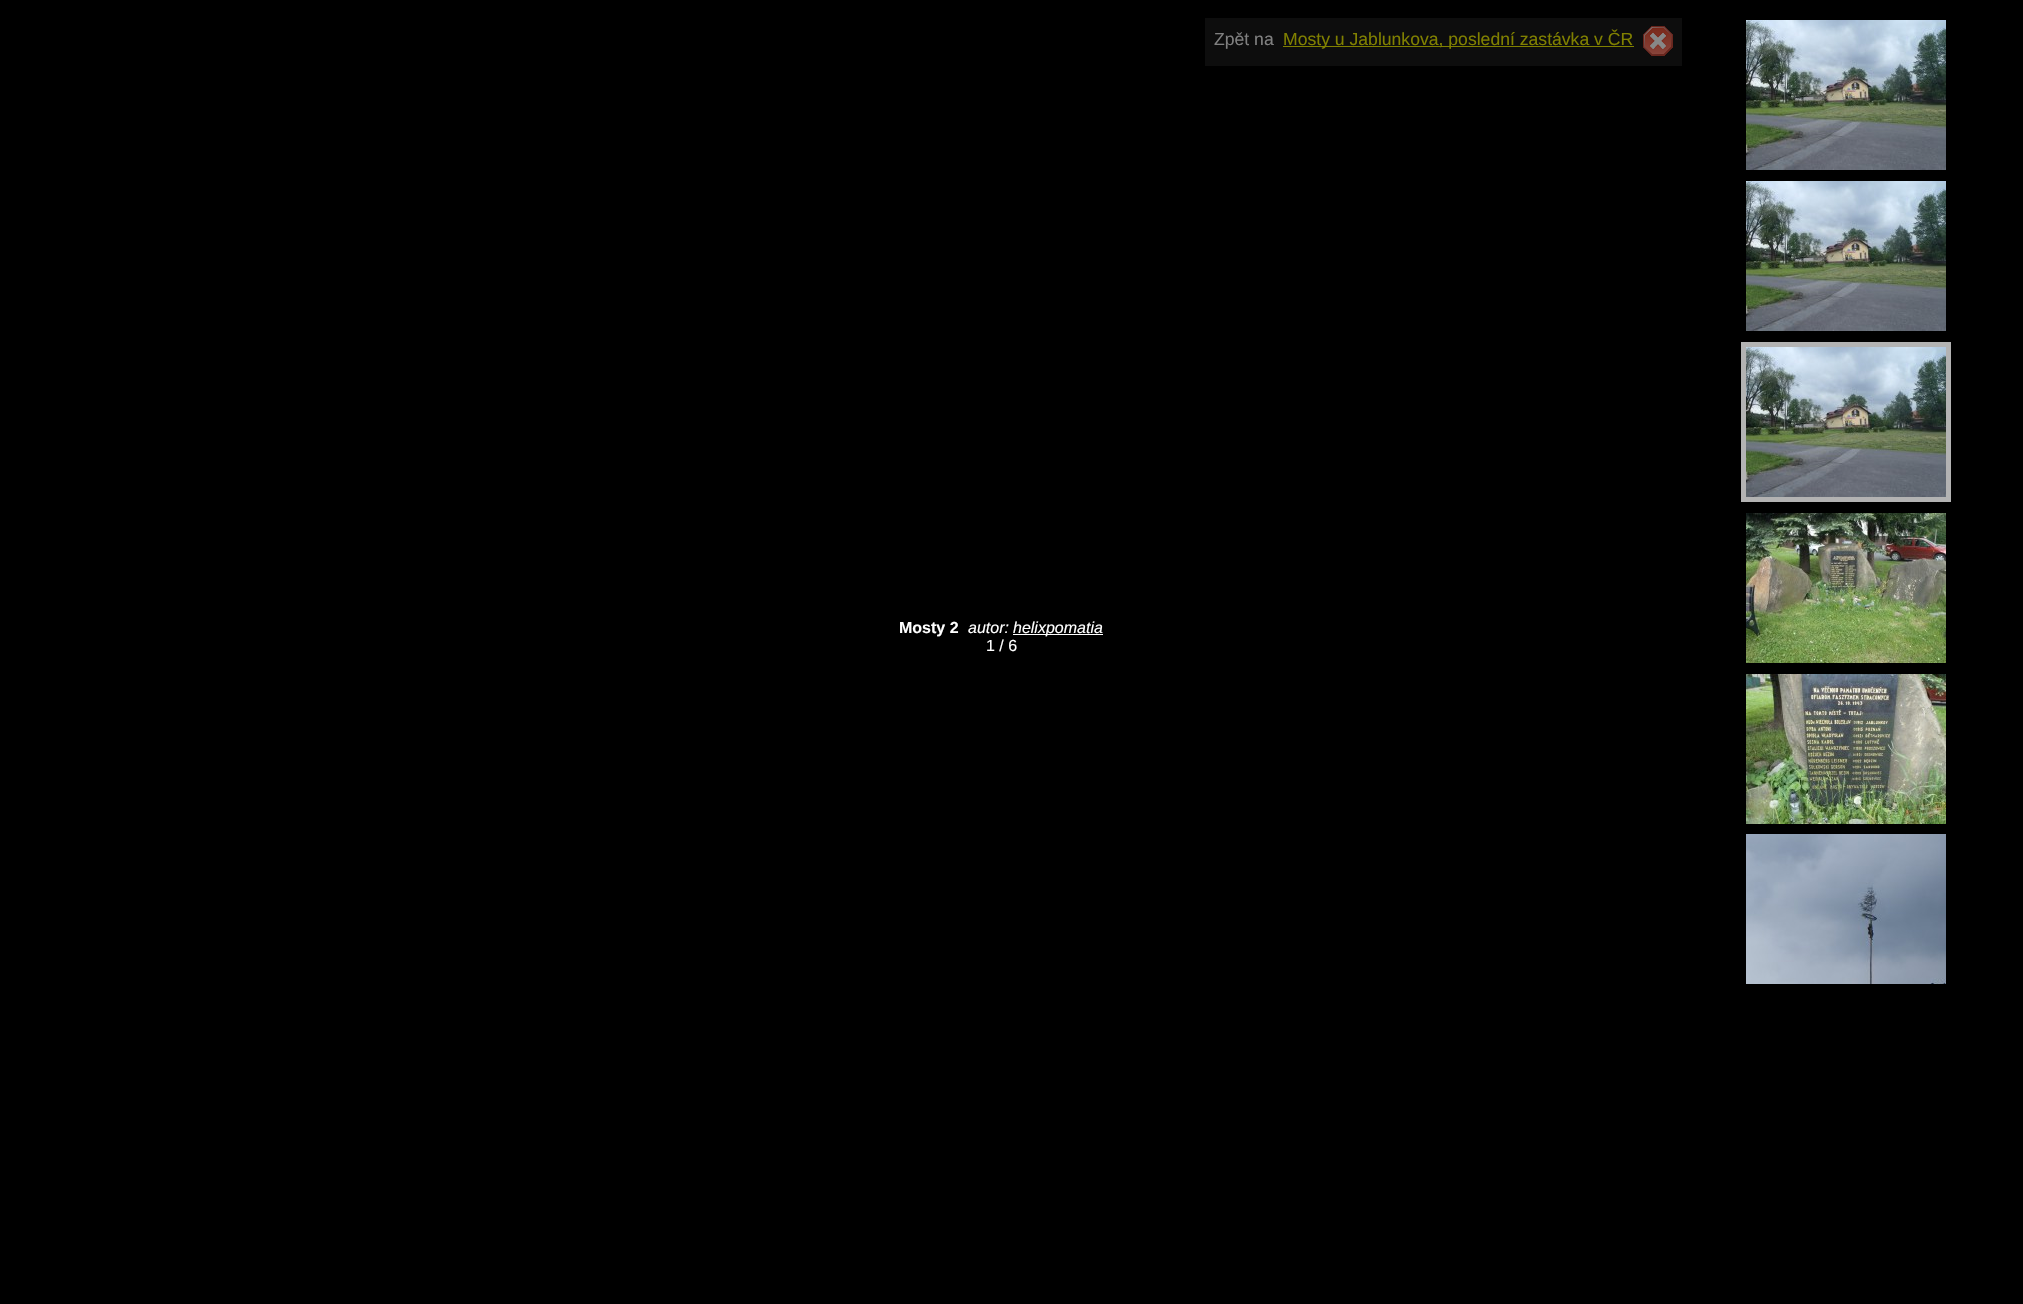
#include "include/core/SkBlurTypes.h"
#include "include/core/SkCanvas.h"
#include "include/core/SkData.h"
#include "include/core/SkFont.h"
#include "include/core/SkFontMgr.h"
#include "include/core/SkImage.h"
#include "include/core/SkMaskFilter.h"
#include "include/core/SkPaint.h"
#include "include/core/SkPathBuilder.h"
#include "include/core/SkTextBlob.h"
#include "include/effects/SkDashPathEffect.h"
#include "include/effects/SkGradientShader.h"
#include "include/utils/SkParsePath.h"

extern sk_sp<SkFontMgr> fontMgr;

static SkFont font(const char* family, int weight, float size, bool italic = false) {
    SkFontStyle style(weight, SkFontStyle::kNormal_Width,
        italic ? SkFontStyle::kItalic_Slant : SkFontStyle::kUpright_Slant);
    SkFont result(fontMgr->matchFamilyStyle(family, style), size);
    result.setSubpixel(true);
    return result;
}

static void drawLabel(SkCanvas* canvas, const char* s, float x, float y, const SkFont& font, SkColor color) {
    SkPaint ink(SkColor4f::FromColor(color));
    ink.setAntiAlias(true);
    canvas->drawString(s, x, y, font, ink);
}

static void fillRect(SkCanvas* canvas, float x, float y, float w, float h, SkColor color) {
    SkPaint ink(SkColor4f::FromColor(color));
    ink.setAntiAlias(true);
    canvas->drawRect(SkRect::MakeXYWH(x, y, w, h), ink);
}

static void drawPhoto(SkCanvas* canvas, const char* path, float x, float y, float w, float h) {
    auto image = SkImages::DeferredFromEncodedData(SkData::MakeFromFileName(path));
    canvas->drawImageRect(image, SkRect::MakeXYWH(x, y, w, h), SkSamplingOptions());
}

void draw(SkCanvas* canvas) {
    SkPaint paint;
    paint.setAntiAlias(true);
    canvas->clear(0xFF000000);
    fillRect(canvas, 1205, 18, 477, 48, 0xFF0D0D0D);
    SkFont font1 = font("Liberation Sans", 400, 17.6f);
    drawLabel(canvas, "Zpět na", 1214, 45, font1, 0xFF808080);
    drawPhoto(canvas, "assets/img1.png", 1643, 26, 30, 30);
    fillRect(canvas, 1283, 46, 351, 1, 0xFF808000);
    drawLabel(canvas, "Mosty u Jablunkova, poslední zastávka v ČR", 1283, 45, font1, 0xFF808000);
    SkFont font2 = font("Liberation Sans", 700, 16);
    drawLabel(canvas, "Mosty 2", 899, 633, font2, 0xFFFFFFFF);
    SkFont font3 = font("Liberation Sans", 400, 16, true);
    drawLabel(canvas, "autor:", 968, 633, font3, 0xFFFFFFFF);
    fillRect(canvas, 1013, 634, 90, 1, 0xFFFFFFFF);
    drawLabel(canvas, "helixpomatia", 1013, 633, font3, 0xFFFFFFFF);
    SkFont font4 = font("Liberation Sans", 400, 16);
    drawLabel(canvas, "1 / 6", 986, 651, font4, 0xFFFFFFFF);
    drawPhoto(canvas, "assets/img2.png", 1746, 20, 200, 150);
    drawPhoto(canvas, "assets/img2.png", 1746, 181, 200, 150);
    paint.setStroke(true);
    paint.setStrokeWidth(5);
    paint.setColor(0xFFB3B3B3);
    canvas->drawRect(SkRect::MakeXYWH(1743.5f, 344.5f, 205, 155), paint);
    drawPhoto(canvas, "assets/img2.png", 1746, 347, 200, 150);
    drawPhoto(canvas, "assets/img3.png", 1746, 513, 200, 150);
    drawPhoto(canvas, "assets/img4.png", 1746, 674, 200, 150);
    drawPhoto(canvas, "assets/img5.png", 1746, 834, 200, 150);
}
